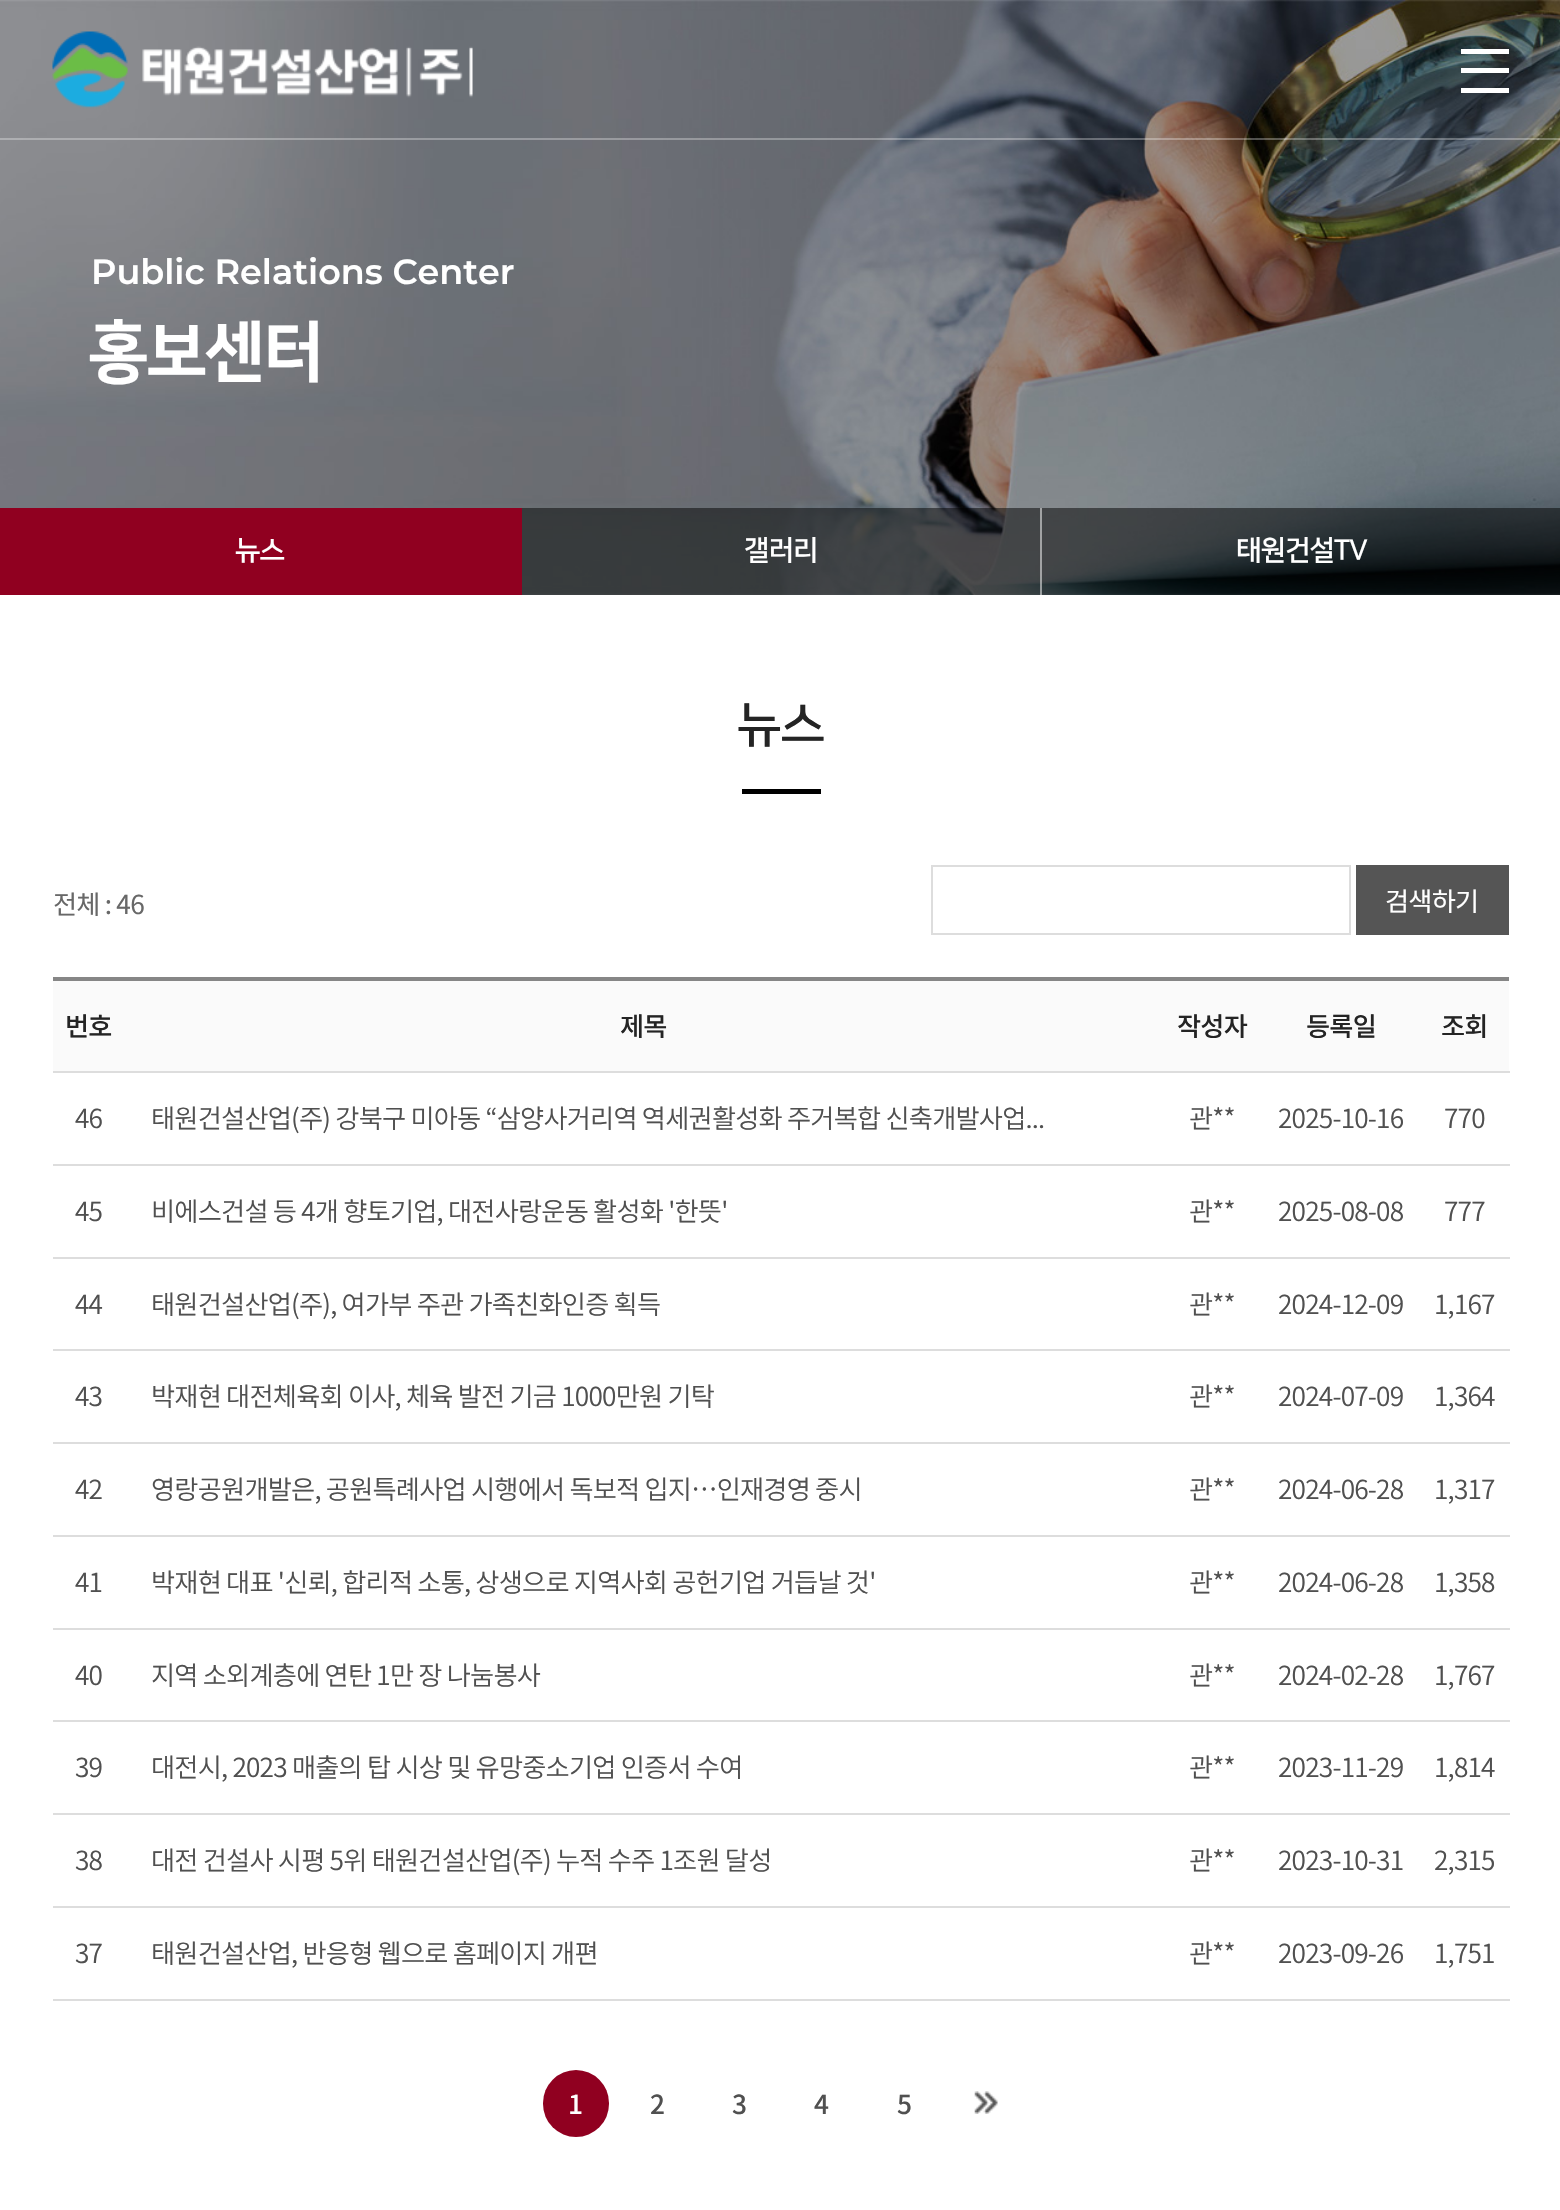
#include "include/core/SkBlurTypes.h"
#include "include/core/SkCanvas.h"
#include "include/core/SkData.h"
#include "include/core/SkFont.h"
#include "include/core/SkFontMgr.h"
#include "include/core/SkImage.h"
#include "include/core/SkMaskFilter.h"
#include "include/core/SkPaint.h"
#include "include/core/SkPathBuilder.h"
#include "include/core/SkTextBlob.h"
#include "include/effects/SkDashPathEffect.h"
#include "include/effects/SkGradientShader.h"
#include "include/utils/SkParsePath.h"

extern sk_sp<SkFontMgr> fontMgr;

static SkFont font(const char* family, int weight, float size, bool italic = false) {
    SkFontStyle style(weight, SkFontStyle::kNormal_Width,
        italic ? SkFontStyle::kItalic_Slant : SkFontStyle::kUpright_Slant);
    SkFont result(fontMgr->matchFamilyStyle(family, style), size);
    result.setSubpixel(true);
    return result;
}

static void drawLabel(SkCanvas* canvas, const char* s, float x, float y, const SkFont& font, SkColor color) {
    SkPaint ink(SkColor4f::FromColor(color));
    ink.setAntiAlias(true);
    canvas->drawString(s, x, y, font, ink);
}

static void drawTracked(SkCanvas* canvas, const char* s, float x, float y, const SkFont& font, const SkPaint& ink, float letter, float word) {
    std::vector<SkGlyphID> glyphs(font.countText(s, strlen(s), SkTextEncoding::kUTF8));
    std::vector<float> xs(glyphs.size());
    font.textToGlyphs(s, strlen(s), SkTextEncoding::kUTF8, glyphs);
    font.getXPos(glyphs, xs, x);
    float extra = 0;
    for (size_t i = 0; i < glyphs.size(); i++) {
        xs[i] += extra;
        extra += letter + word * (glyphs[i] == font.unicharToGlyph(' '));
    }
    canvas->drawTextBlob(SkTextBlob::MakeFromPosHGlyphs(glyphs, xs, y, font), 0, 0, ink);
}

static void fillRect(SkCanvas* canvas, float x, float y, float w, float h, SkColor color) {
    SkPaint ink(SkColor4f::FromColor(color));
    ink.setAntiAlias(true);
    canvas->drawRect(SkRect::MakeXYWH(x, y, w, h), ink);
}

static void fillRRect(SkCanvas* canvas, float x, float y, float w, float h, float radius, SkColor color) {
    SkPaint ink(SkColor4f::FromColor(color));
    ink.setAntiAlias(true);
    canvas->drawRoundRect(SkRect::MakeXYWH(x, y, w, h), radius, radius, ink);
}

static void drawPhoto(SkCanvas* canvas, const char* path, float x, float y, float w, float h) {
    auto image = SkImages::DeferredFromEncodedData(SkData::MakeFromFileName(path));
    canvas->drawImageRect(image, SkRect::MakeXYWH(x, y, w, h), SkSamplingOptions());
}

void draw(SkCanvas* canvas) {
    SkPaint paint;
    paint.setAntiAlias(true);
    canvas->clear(0xFFFFFFFF);
    drawPhoto(canvas, "assets/img2.png", 0, 0, 1560, 595);
    fillRect(canvas, 0, 138, 1560, 2, 0x4DFFFFFF);
    drawPhoto(canvas, "assets/img1.png", 52, 31, 421, 78);
    fillRect(canvas, 1461, 68, 48, 5, 0xFFFFFFFF);
    fillRect(canvas, 1461, 49, 48, 5, 0xFFFFFFFF);
    fillRect(canvas, 1461, 88, 48, 5, 0xFFFFFFFF);
    SkFont font1 = font("Montserrat", 600, 35);
    drawLabel(canvas, "Public Relations Center", 91, 284, font1, 0xFFFFFFFF);
    SkFont font2 = font("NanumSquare", 800, 66.5f);
    paint.setColor(0xFFFFFFFF);
    drawTracked(canvas, "홍보센터", 88, 373, font2, paint, -2, 0);
    fillRect(canvas, 522, 508, 1038, 87, 0x80000000);
    fillRect(canvas, 0, 508, 522, 87, 0xFF900020);
    SkFont font3 = font("NanumSquare", 700, 28);
    drawTracked(canvas, "뉴스", 235, 559, font3, paint, -1, 0);
    drawTracked(canvas, "갤러리", 744, 559, font3, paint, -1, 0);
    fillRect(canvas, 1040, 508, 2, 87, 0x80FFFFFF);
    drawTracked(canvas, "태원건설TV", 1236, 559, font3, paint, -1, 0);
    SkFont font4 = font("NanumSquare", 700, 49);
    paint.setColor(0xFF242424);
    drawTracked(canvas, "뉴스", 737, 740, font4, paint, -1, 0);
    fillRect(canvas, 742, 789, 79, 5, 0xFF000000);
    SkFont font5 = font("Noto Sans KR", 400, 26.25f);
    paint.setColor(0xFF686868);
    drawTracked(canvas, "전체 : 46", 53, 914, font5, paint, -0.8f, 0);
    paint.setStroke(true);
    paint.setStrokeWidth(2);
    paint.setColor(0xFFDDDDDD);
    canvas->drawRect(SkRect::MakeXYWH(932, 866, 418, 68), paint);
    fillRect(canvas, 1356, 865, 153, 70, 0xFF555555);
    paint.setStroke(false);
    paint.setColor(0xFFFFFFFF);
    drawTracked(canvas, "검색하기", 1385, 911, font5, paint, -0.8f, 0);
    fillRect(canvas, 53, 977, 1456, 4, 0xFF868686);
    fillRect(canvas, 53, 981, 1456, 90, 0xFFFAFAFA);
    SkFont font6 = font("Noto Sans KR", 500, 26.25f);
    paint.setColor(0xFF242424);
    drawTracked(canvas, "번호", 65, 1036, font6, paint, -0.8f, 0);
    drawTracked(canvas, "제목", 620, 1036, font6, paint, -0.8f, 0);
    drawTracked(canvas, "작성자", 1177, 1036, font6, paint, -0.8f, 0);
    drawTracked(canvas, "등록일", 1306, 1036, font6, paint, -0.8f, 0);
    fillRect(canvas, 53, 1071, 1457, 2, 0xFFDDDDDD);
    drawTracked(canvas, "조회", 1441, 1036, font6, paint, -0.8f, 0);
    SkFont font7 = font("Noto Sans KR", 300, 26.25f);
    paint.setColor(0xFF505050);
    drawTracked(canvas, "46", 75, 1128, font7, paint, -0.8f, 0);
    drawTracked(canvas, "태원건설산업(주) 강북구 미아동 “삼양사거리역 역세권활성화 주거복합 신축개발사업...", 151, 1128, font7, paint, -0.8f, 0);
    drawTracked(canvas, "관**", 1189, 1128, font7, paint, -0.8f, 0);
    drawTracked(canvas, "2025-10-16", 1278, 1128, font7, paint, -0.8f, 0);
    fillRect(canvas, 53, 1164, 1457, 2, 0xFFDDDDDD);
    drawTracked(canvas, "770", 1444, 1128, font7, paint, -0.8f, 0);
    drawTracked(canvas, "45", 75, 1221, font7, paint, -0.8f, 0);
    drawTracked(canvas, "비에스건설 등 4개 향토기업, 대전사랑운동 활성화 '한뜻'", 151, 1221, font7, paint, -0.8f, 0);
    drawTracked(canvas, "관**", 1189, 1221, font7, paint, -0.8f, 0);
    drawTracked(canvas, "2025-08-08", 1278, 1221, font7, paint, -0.8f, 0);
    fillRect(canvas, 53, 1257, 1457, 2, 0xFFDDDDDD);
    drawTracked(canvas, "777", 1444, 1221, font7, paint, -0.8f, 0);
    drawTracked(canvas, "44", 75, 1314, font7, paint, -0.8f, 0);
    drawTracked(canvas, "태원건설산업(주), 여가부 주관 가족친화인증 획득", 151, 1314, font7, paint, -0.8f, 0);
    drawTracked(canvas, "관**", 1189, 1314, font7, paint, -0.8f, 0);
    drawTracked(canvas, "2024-12-09", 1278, 1314, font7, paint, -0.8f, 0);
    fillRect(canvas, 53, 1349, 1457, 2, 0xFFDDDDDD);
    drawTracked(canvas, "1,167", 1434, 1314, font7, paint, -0.8f, 0);
    drawTracked(canvas, "43", 75, 1406, font7, paint, -0.8f, 0);
    drawTracked(canvas, "박재현 대전체육회 이사, 체육 발전 기금 1000만원 기탁", 151, 1406, font7, paint, -0.8f, 0);
    drawTracked(canvas, "관**", 1189, 1406, font7, paint, -0.8f, 0);
    drawTracked(canvas, "2024-07-09", 1278, 1406, font7, paint, -0.8f, 0);
    fillRect(canvas, 53, 1442, 1457, 2, 0xFFDDDDDD);
    drawTracked(canvas, "1,364", 1434, 1406, font7, paint, -0.8f, 0);
    drawTracked(canvas, "42", 75, 1499, font7, paint, -0.8f, 0);
    drawTracked(canvas, "영랑공원개발은, 공원특례사업 시행에서 독보적 입지…인재경영 중시", 151, 1499, font7, paint, -0.8f, 0);
    drawTracked(canvas, "관**", 1189, 1499, font7, paint, -0.8f, 0);
    drawTracked(canvas, "2024-06-28", 1278, 1499, font7, paint, -0.8f, 0);
    fillRect(canvas, 53, 1535, 1457, 2, 0xFFDDDDDD);
    drawTracked(canvas, "1,317", 1434, 1499, font7, paint, -0.8f, 0);
    drawTracked(canvas, "41", 75, 1592, font7, paint, -0.8f, 0);
    drawTracked(canvas, "박재현 대표 '신뢰, 합리적 소통, 상생으로 지역사회 공헌기업 거듭날 것'", 151, 1592, font7, paint, -0.8f, 0);
    drawTracked(canvas, "관**", 1189, 1592, font7, paint, -0.8f, 0);
    drawTracked(canvas, "2024-06-28", 1278, 1592, font7, paint, -0.8f, 0);
    fillRect(canvas, 53, 1628, 1457, 2, 0xFFDDDDDD);
    drawTracked(canvas, "1,358", 1434, 1592, font7, paint, -0.8f, 0);
    drawTracked(canvas, "40", 75, 1685, font7, paint, -0.8f, 0);
    drawTracked(canvas, "지역 소외계층에 연탄 1만 장 나눔봉사", 151, 1685, font7, paint, -0.8f, 0);
    drawTracked(canvas, "관**", 1189, 1685, font7, paint, -0.8f, 0);
    drawTracked(canvas, "2024-02-28", 1278, 1685, font7, paint, -0.8f, 0);
    fillRect(canvas, 53, 1720, 1457, 2, 0xFFDDDDDD);
    drawTracked(canvas, "1,767", 1434, 1685, font7, paint, -0.8f, 0);
    drawTracked(canvas, "39", 75, 1777, font7, paint, -0.8f, 0);
    drawTracked(canvas, "대전시, 2023 매출의 탑 시상 및 유망중소기업 인증서 수여", 151, 1777, font7, paint, -0.8f, 0);
    drawTracked(canvas, "관**", 1189, 1777, font7, paint, -0.8f, 0);
    drawTracked(canvas, "2023-11-29", 1278, 1777, font7, paint, -0.8f, 0);
    fillRect(canvas, 53, 1813, 1457, 2, 0xFFDDDDDD);
    drawTracked(canvas, "1,814", 1434, 1777, font7, paint, -0.8f, 0);
    drawTracked(canvas, "38", 75, 1870, font7, paint, -0.8f, 0);
    drawTracked(canvas, "대전 건설사 시평 5위 태원건설산업(주) 누적 수주 1조원 달성", 151, 1870, font7, paint, -0.8f, 0);
    drawTracked(canvas, "관**", 1189, 1870, font7, paint, -0.8f, 0);
    drawTracked(canvas, "2023-10-31", 1278, 1870, font7, paint, -0.8f, 0);
    fillRect(canvas, 53, 1906, 1457, 2, 0xFFDDDDDD);
    drawTracked(canvas, "2,315", 1434, 1870, font7, paint, -0.8f, 0);
    drawTracked(canvas, "37", 75, 1963, font7, paint, -0.8f, 0);
    drawTracked(canvas, "태원건설산업, 반응형 웹으로 홈페이지 개편", 151, 1963, font7, paint, -0.8f, 0);
    drawTracked(canvas, "관**", 1189, 1963, font7, paint, -0.8f, 0);
    drawTracked(canvas, "2023-09-26", 1278, 1963, font7, paint, -0.8f, 0);
    fillRect(canvas, 53, 1999, 1457, 2, 0xFFDDDDDD);
    drawTracked(canvas, "1,751", 1434, 1963, font7, paint, -0.8f, 0);
    fillRRect(canvas, 543, 2070, 66, 67, 33, 0xFF900020);
    paint.setColor(0xFFFFFFFF);
    drawTracked(canvas, "1", 568, 2114, font6, paint, -0.8f, 0);
    paint.setColor(0xFF505050);
    drawTracked(canvas, "2", 650, 2114, font6, paint, -0.8f, 0);
    drawTracked(canvas, "3", 732, 2114, font6, paint, -0.8f, 0);
    drawTracked(canvas, "4", 814, 2114, font6, paint, -0.8f, 0);
    drawTracked(canvas, "5", 897, 2114, font6, paint, -0.8f, 0);
    drawPhoto(canvas, "assets/img3.png", 974, 2091, 24, 23);
}
